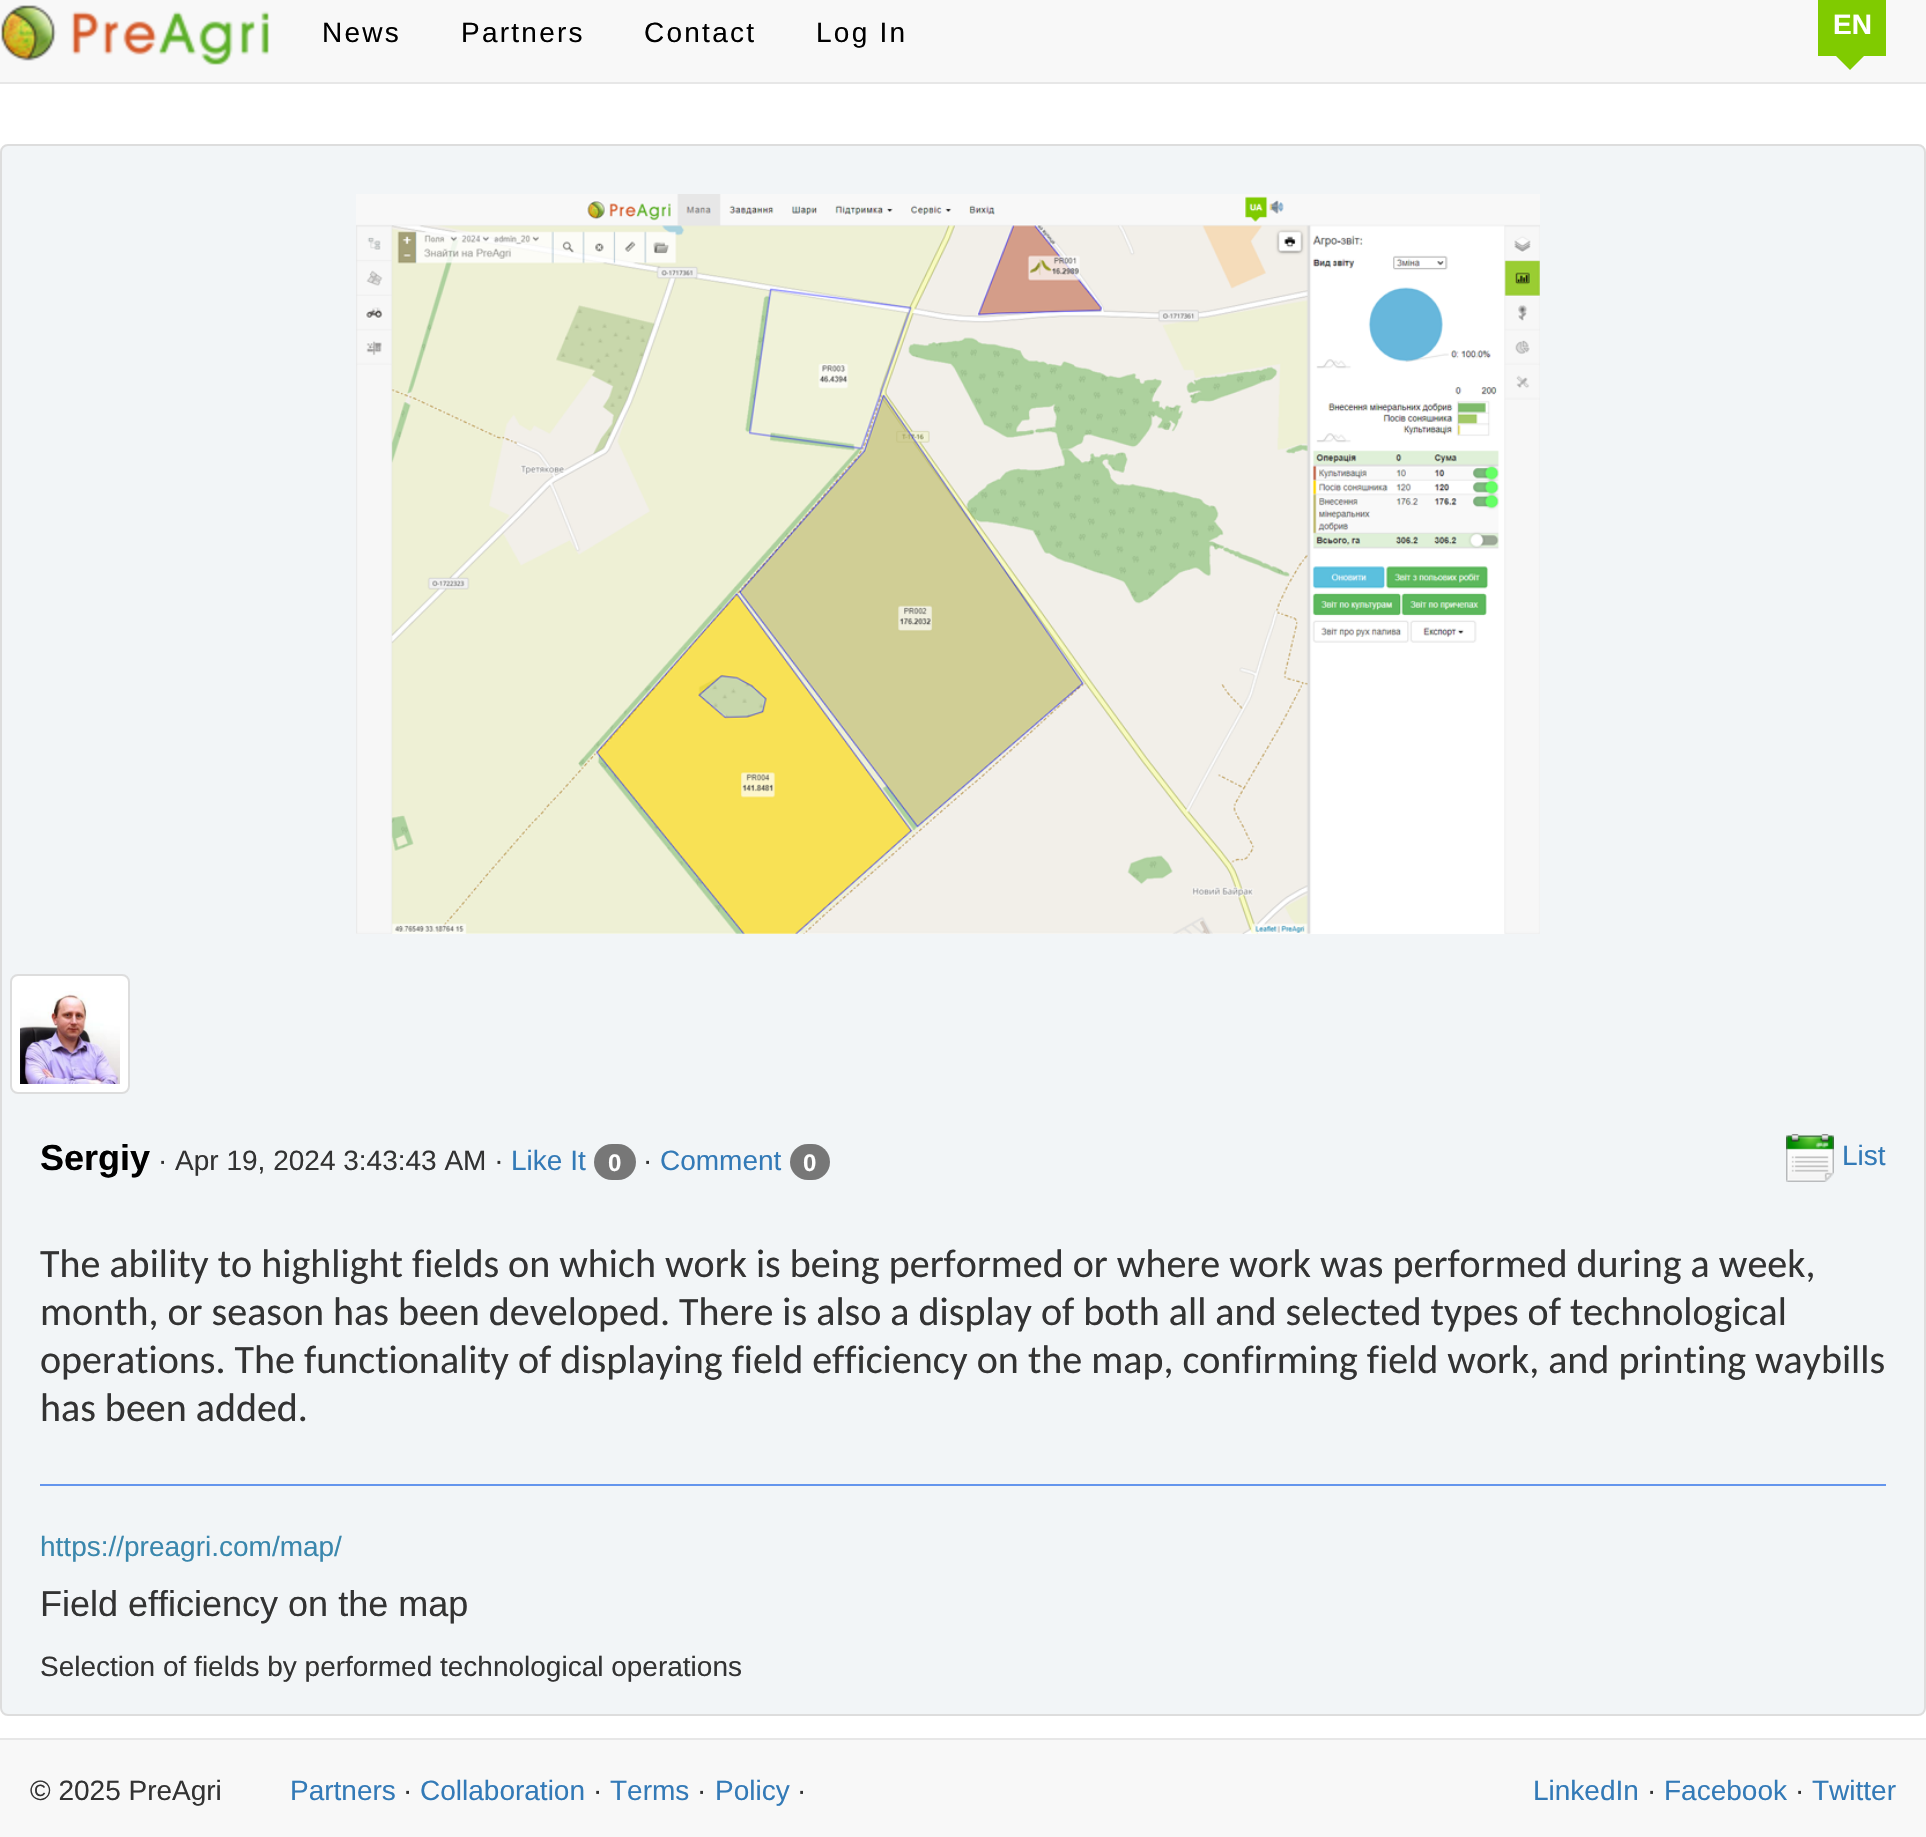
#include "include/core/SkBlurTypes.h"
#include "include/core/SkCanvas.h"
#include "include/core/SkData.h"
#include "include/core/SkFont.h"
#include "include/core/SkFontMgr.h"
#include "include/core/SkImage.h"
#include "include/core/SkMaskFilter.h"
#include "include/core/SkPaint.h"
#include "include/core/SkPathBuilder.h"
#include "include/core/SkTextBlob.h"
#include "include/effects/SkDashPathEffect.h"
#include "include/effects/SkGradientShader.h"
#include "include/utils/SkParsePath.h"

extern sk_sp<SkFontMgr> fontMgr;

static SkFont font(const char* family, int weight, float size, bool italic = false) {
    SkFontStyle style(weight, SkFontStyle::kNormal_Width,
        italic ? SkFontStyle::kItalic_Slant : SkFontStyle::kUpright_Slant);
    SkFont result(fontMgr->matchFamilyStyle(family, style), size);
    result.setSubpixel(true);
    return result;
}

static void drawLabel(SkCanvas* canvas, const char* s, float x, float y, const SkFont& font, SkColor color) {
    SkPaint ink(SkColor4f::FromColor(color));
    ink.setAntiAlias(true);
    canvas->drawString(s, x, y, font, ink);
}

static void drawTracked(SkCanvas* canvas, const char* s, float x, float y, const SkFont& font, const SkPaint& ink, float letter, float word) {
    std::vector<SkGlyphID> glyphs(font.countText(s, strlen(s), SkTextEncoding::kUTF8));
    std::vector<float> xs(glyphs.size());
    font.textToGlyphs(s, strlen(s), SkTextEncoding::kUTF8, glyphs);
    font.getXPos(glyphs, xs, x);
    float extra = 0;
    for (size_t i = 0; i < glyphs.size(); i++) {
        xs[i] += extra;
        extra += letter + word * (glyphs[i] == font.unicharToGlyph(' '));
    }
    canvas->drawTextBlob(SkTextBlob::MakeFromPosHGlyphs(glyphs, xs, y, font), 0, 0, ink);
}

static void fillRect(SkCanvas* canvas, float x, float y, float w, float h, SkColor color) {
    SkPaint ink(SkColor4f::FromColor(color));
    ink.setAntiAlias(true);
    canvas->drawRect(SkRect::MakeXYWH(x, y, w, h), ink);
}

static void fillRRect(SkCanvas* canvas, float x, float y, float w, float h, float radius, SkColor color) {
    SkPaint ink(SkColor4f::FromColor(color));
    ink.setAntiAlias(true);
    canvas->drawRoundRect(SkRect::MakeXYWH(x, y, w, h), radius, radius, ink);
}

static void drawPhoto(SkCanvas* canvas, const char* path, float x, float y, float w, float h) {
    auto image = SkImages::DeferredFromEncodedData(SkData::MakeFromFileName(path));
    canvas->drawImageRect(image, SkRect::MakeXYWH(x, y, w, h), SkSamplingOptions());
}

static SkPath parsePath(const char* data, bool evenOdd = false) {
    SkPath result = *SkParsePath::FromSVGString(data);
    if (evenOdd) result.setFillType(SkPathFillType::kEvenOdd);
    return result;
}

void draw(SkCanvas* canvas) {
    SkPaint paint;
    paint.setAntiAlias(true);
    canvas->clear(0xFFFFFFFF);
    fillRect(canvas, 0, 0, 1926, 82, 0xFFF8F8F8);
    fillRect(canvas, 0, 82, 1926, 2, 0xFFE7E7E7);
    drawPhoto(canvas, "assets/img1.png", 1, 5, 268, 60);
    SkFont font1 = font("Liberation Sans", 400, 28);
    paint.setColor(0xFF000000);
    drawTracked(canvas, "News", 322, 42, font1, paint, 2.25f, 0);
    drawTracked(canvas, "Partners", 461, 42, font1, paint, 2.25f, 0);
    drawTracked(canvas, "Contact", 644, 42, font1, paint, 2.25f, 0);
    drawTracked(canvas, "Log In", 816, 42, font1, paint, 2.25f, 0);
    fillRect(canvas, 1818, 0, 68, 56, 0xFF80CB00);
    SkFont font2 = font("Liberation Sans", 700, 28);
    drawLabel(canvas, "EN", 1833, 34, font2, 0xFFFFFFFF);
    paint.setColor(0xFF80CB00);
    canvas->drawPath(parsePath("M1850 42L1864 56L1850 70L1836 56Z"), paint);
    paint.setColor(0xFFF2F5F7);
    canvas->drawRoundRect(SkRect::MakeXYWH(1, 145, 1924, 1570), 7, 7, paint);
    paint.setStroke(true);
    paint.setStrokeWidth(2);
    paint.setColor(0xFFDDDDDD);
    canvas->drawRoundRect(SkRect::MakeXYWH(1, 145, 1924, 1570), 7, 7, paint);
    drawPhoto(canvas, "assets/img2.png", 356, 194, 1184, 740);
    paint.setStroke(false);
    paint.setColor(0xFFFFFFFF);
    canvas->drawRoundRect(SkRect::MakeXYWH(11, 975, 118, 118), 7, 7, paint);
    paint.setStroke(true);
    paint.setColor(0xFFDDDDDD);
    canvas->drawRoundRect(SkRect::MakeXYWH(11, 975, 118, 118), 7, 7, paint);
    drawPhoto(canvas, "assets/img3.png", 20, 991, 100, 93);
    SkFont font3 = font("Liberation Sans", 700, 36);
    drawLabel(canvas, "Sergiy", 40, 1170, font3, 0xFF000000);
    drawLabel(canvas, "· Apr 19, 2024 3:43:43 AM ·", 158, 1170, font1, 0xFF333333);
    drawLabel(canvas, "Like It", 511, 1170, font1, 0xFF337AB7);
    fillRRect(canvas, 594, 1144, 42, 36, 18, 0xFF777777);
    SkFont font4 = font("Liberation Sans", 700, 24);
    drawLabel(canvas, "0", 608, 1171, font4, 0xFFFFFFFF);
    drawLabel(canvas, "·", 643, 1170, font1, 0xFF333333);
    drawLabel(canvas, "Comment", 660, 1170, font1, 0xFF337AB7);
    fillRRect(canvas, 790, 1144, 40, 36, 18, 0xFF777777);
    drawLabel(canvas, "0", 803, 1171, font4, 0xFFFFFFFF);
    drawPhoto(canvas, "assets/img4.png", 1786, 1134, 48, 48);
    drawLabel(canvas, "List", 1842, 1165, font1, 0xFF337AB7);
    SkFont font5 = font("Carlito", 400, 40);
    drawLabel(canvas, "The ability to highlight fields on which work is being performed or where work was performed during a week,", 40, 1277, font5, 0xFF333333);
    drawLabel(canvas, "month, or season has been developed. There is also a display of both all and selected types of technological", 40, 1325, font5, 0xFF333333);
    drawLabel(canvas, "operations. The functionality of displaying field efficiency on the map, confirming field work, and printing waybills", 40, 1373, font5, 0xFF333333);
    drawLabel(canvas, "has been added.", 40, 1421, font5, 0xFF333333);
    fillRect(canvas, 40, 1484, 1846, 2, 0xFF6495ED);
    drawLabel(canvas, "https://preagri.com/map/", 40, 1556, font1, 0xFF3A87AD);
    SkFont font6 = font("Liberation Sans", 400, 36);
    drawLabel(canvas, "Field efficiency on the map", 40, 1616, font6, 0xFF333333);
    drawLabel(canvas, "Selection of fields by performed technological operations", 40, 1676, font1, 0xFF333333);
    fillRect(canvas, 0, 1740, 1926, 97, 0xFFF8F8F8);
    fillRect(canvas, 0, 1738, 1926, 2, 0xFFE7E7E7);
    drawLabel(canvas, "© 2025 PreAgri", 30, 1800, font1, 0xFF333333);
    drawLabel(canvas, "Partners", 290, 1800, font1, 0xFF337AB7);
    drawLabel(canvas, "·", 403, 1800, font1, 0xFF333333);
    drawLabel(canvas, "Collaboration", 420, 1800, font1, 0xFF337AB7);
    drawLabel(canvas, "·", 593, 1800, font1, 0xFF333333);
    drawLabel(canvas, "Terms", 610, 1800, font1, 0xFF337AB7);
    drawLabel(canvas, "·", 697, 1800, font1, 0xFF333333);
    drawLabel(canvas, "Policy", 715, 1800, font1, 0xFF337AB7);
    drawLabel(canvas, "·", 797, 1800, font1, 0xFF333333);
    drawLabel(canvas, "LinkedIn", 1533, 1800, font1, 0xFF337AB7);
    drawLabel(canvas, "·", 1647, 1800, font1, 0xFF333333);
    drawLabel(canvas, "Facebook", 1664, 1800, font1, 0xFF337AB7);
    drawLabel(canvas, "·", 1795, 1800, font1, 0xFF333333);
    drawLabel(canvas, "Twitter", 1812, 1800, font1, 0xFF337AB7);
}
